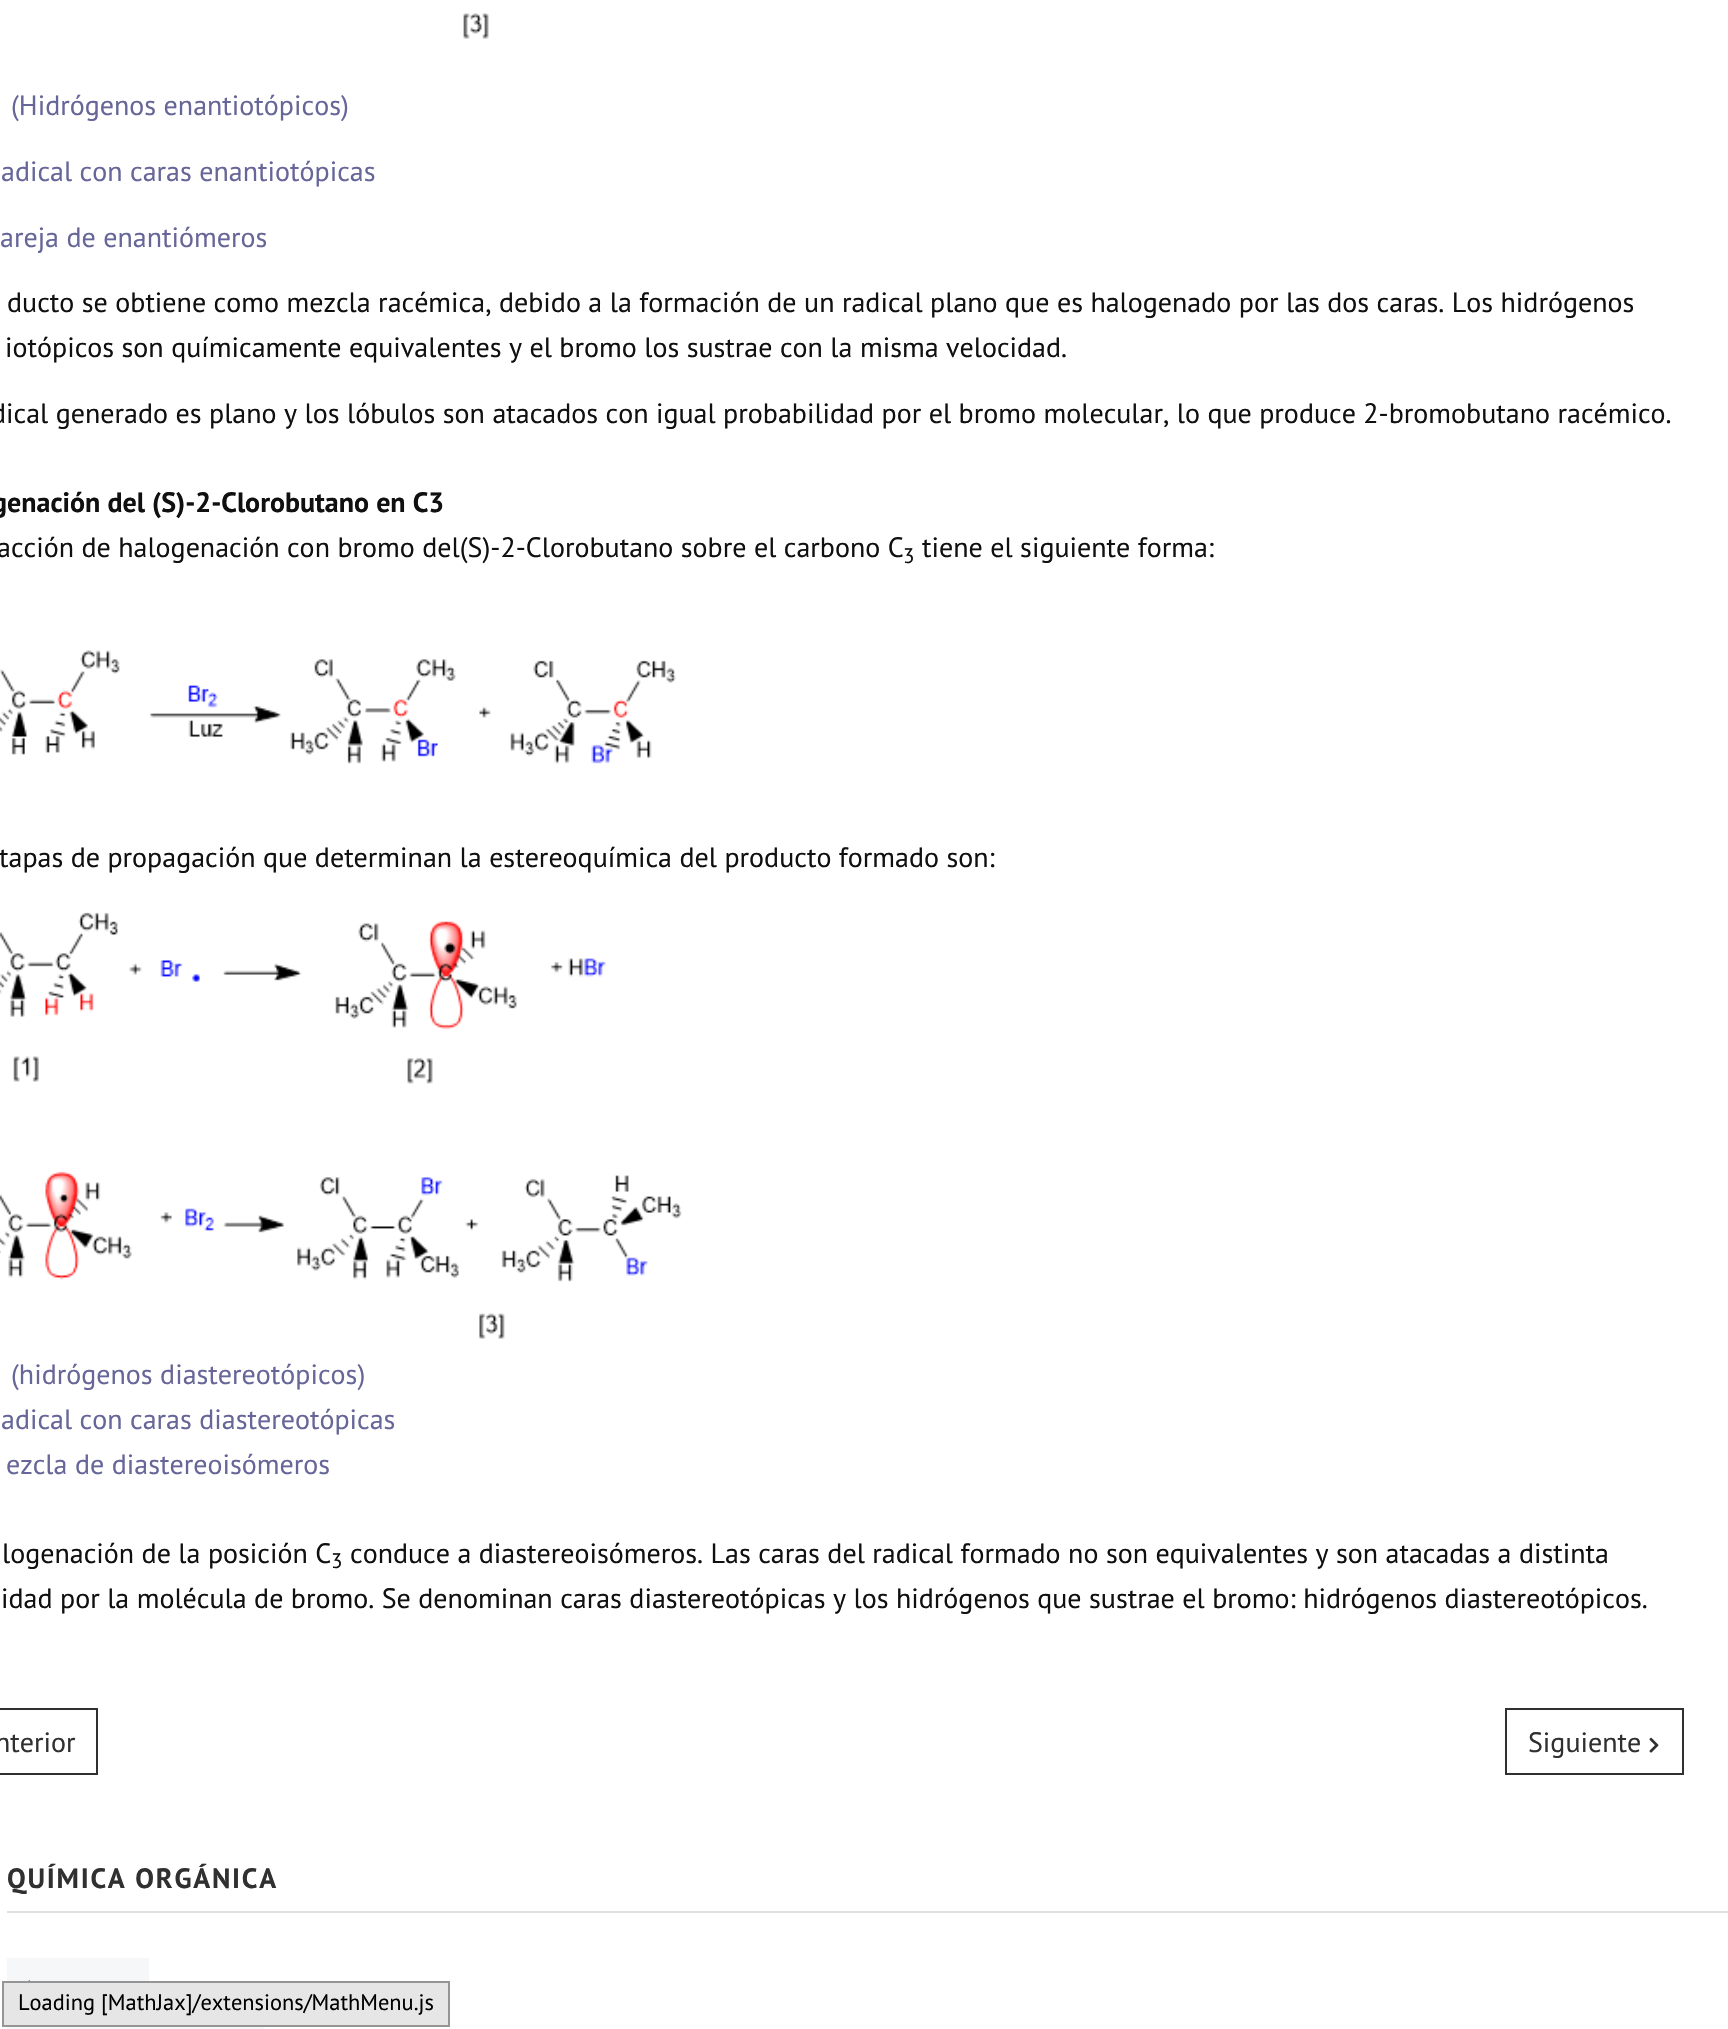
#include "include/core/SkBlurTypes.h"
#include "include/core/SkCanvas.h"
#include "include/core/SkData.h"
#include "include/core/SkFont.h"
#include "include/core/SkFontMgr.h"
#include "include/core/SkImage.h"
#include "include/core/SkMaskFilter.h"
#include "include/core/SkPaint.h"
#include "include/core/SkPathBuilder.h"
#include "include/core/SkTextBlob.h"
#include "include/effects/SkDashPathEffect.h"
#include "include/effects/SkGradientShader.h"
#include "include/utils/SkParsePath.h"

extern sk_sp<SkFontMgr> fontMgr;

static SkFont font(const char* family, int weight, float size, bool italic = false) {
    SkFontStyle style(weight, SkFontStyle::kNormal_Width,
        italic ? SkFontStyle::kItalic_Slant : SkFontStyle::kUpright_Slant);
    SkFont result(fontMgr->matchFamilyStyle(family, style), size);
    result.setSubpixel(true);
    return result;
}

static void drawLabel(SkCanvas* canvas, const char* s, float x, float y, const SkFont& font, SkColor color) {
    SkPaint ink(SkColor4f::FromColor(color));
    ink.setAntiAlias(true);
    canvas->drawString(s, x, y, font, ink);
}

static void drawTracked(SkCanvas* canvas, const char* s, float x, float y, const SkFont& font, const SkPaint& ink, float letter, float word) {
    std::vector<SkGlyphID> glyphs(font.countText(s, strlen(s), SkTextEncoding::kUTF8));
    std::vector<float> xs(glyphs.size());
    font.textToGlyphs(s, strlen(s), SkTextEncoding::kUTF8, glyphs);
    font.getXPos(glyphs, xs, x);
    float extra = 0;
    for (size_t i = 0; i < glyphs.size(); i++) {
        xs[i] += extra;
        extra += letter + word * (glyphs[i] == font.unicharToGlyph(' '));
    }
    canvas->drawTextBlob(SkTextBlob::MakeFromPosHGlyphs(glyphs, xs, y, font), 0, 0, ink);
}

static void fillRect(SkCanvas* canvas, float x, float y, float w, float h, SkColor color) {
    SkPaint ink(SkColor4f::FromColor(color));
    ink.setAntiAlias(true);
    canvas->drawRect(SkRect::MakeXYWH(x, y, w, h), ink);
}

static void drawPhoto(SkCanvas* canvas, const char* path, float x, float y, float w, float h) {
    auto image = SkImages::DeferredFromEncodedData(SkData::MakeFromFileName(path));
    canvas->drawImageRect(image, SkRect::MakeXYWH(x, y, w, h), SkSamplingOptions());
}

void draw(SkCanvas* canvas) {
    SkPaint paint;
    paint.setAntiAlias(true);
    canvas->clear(0xFFFFFFFF);
    drawPhoto(canvas, "assets/img1.png", 463, 13, 26, 26);
    SkFont font1 = font("PT Sans", 400, 28);
    drawLabel(canvas, "(Hidrógenos enantiotópicos)", 11, 115, font1, 0xFF666699);
    drawLabel(canvas, "adical con caras enantiotópicas", 1, 181, font1, 0xFF666699);
    drawLabel(canvas, "areja de enantiómeros", 0, 247, font1, 0xFF666699);
    drawLabel(canvas, "ducto se obtiene como mezcla racémica, debido a la formación de un radical plano que es halogenado por las dos caras. Los hidrógenos", 7, 312, font1, 0xFF101010);
    drawLabel(canvas, "iotópicos son químicamente equivalentes y el bromo los sustrae con la misma velocidad.", 5, 357, font1, 0xFF101010);
    drawLabel(canvas, "dical generado es plano y los lóbulos son atacados con igual probabilidad por el bromo molecular, lo que produce 2-bromobutano racémico.", -9, 423, font1, 0xFF101010);
    SkFont font2 = font("PT Sans", 700, 28);
    drawLabel(canvas, "genación del (S)-2-Clorobutano en C3", -8, 512, font2, 0xFF101010);
    drawLabel(canvas, "acción de halogenación con bromo del(S)-2-Clorobutano sobre el carbono C", -3, 557, font1, 0xFF101010);
    SkFont font3 = font("PT Sans", 400, 21);
    drawLabel(canvas, "3", 903, 563, font3, 0xFF101010);
    drawLabel(canvas, "tiene el siguiente forma:", 922, 557, font1, 0xFF101010);
    drawPhoto(canvas, "assets/img2.png", 0, 650, 676, 114);
    drawLabel(canvas, "tapas de propagación que determinan la estereoquímica del producto formado son:", -1, 867, font1, 0xFF101010);
    drawPhoto(canvas, "assets/img3.png", 0, 912, 682, 427);
    drawLabel(canvas, "(hidrógenos diastereotópicos)", 11, 1384, font1, 0xFF666699);
    drawLabel(canvas, "adical con caras diastereotópicas", 1, 1429, font1, 0xFF666699);
    drawLabel(canvas, "ezcla de diastereoisómeros", 6, 1474, font1, 0xFF666699);
    drawLabel(canvas, "logenación de la posición C", 2, 1563, font1, 0xFF101010);
    drawLabel(canvas, "3", 331, 1568, font3, 0xFF101010);
    drawLabel(canvas, "conduce a diastereoisómeros. Las caras del radical formado no son equivalentes y son atacadas a distinta", 350, 1563, font1, 0xFF101010);
    drawLabel(canvas, "idad por la molécula de bromo. Se denominan caras diastereotópicas y los hidrógenos que sustrae el bromo: hidrógenos diastereotópicos.", 1, 1608, font1, 0xFF101010);
    paint.setStroke(true);
    paint.setStrokeWidth(2);
    paint.setColor(0xFF303030);
    canvas->drawRect(SkRect::MakeXYWH(-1, 1709, 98, 65), paint);
    drawLabel(canvas, "nterior", -5, 1752, font1, 0xFF303030);
    canvas->drawRect(SkRect::MakeXYWH(1506, 1709, 177, 65), paint);
    drawLabel(canvas, "Siguiente", 1528, 1752, font1, 0xFF303030);
    drawPhoto(canvas, "assets/img4.png", 1649, 1737, 10, 16);
    fillRect(canvas, 7, 1911, 1721, 2, 0xFFE0E0E0);
    paint.setStroke(false);
    drawTracked(canvas, "QUÍMICA ORGÁNICA", 7, 1888, font2, paint, 1.75f, 0);
    fillRect(canvas, 7, 1958, 142, 23, 0xFFF6F7F8);
    drawPhoto(canvas, "assets/img5.png", 28, 1980, 2, 1);
    fillRect(canvas, 7, 2027, 257, 2, 0xFFF6F7F8);
    paint.setColor(0xFFE6E6E6);
    canvas->drawRect(SkRect::MakeXYWH(3, 1982, 446, 44), paint);
    paint.setStroke(true);
    paint.setColor(0xFF959595);
    canvas->drawRect(SkRect::MakeXYWH(3, 1982, 446, 44), paint);
    SkFont font4 = font("PT Sans", 400, 22.4f);
    drawLabel(canvas, "Loading [MathJax]/extensions/MathMenu.js", 18, 2010, font4, 0xFF000000);
}
